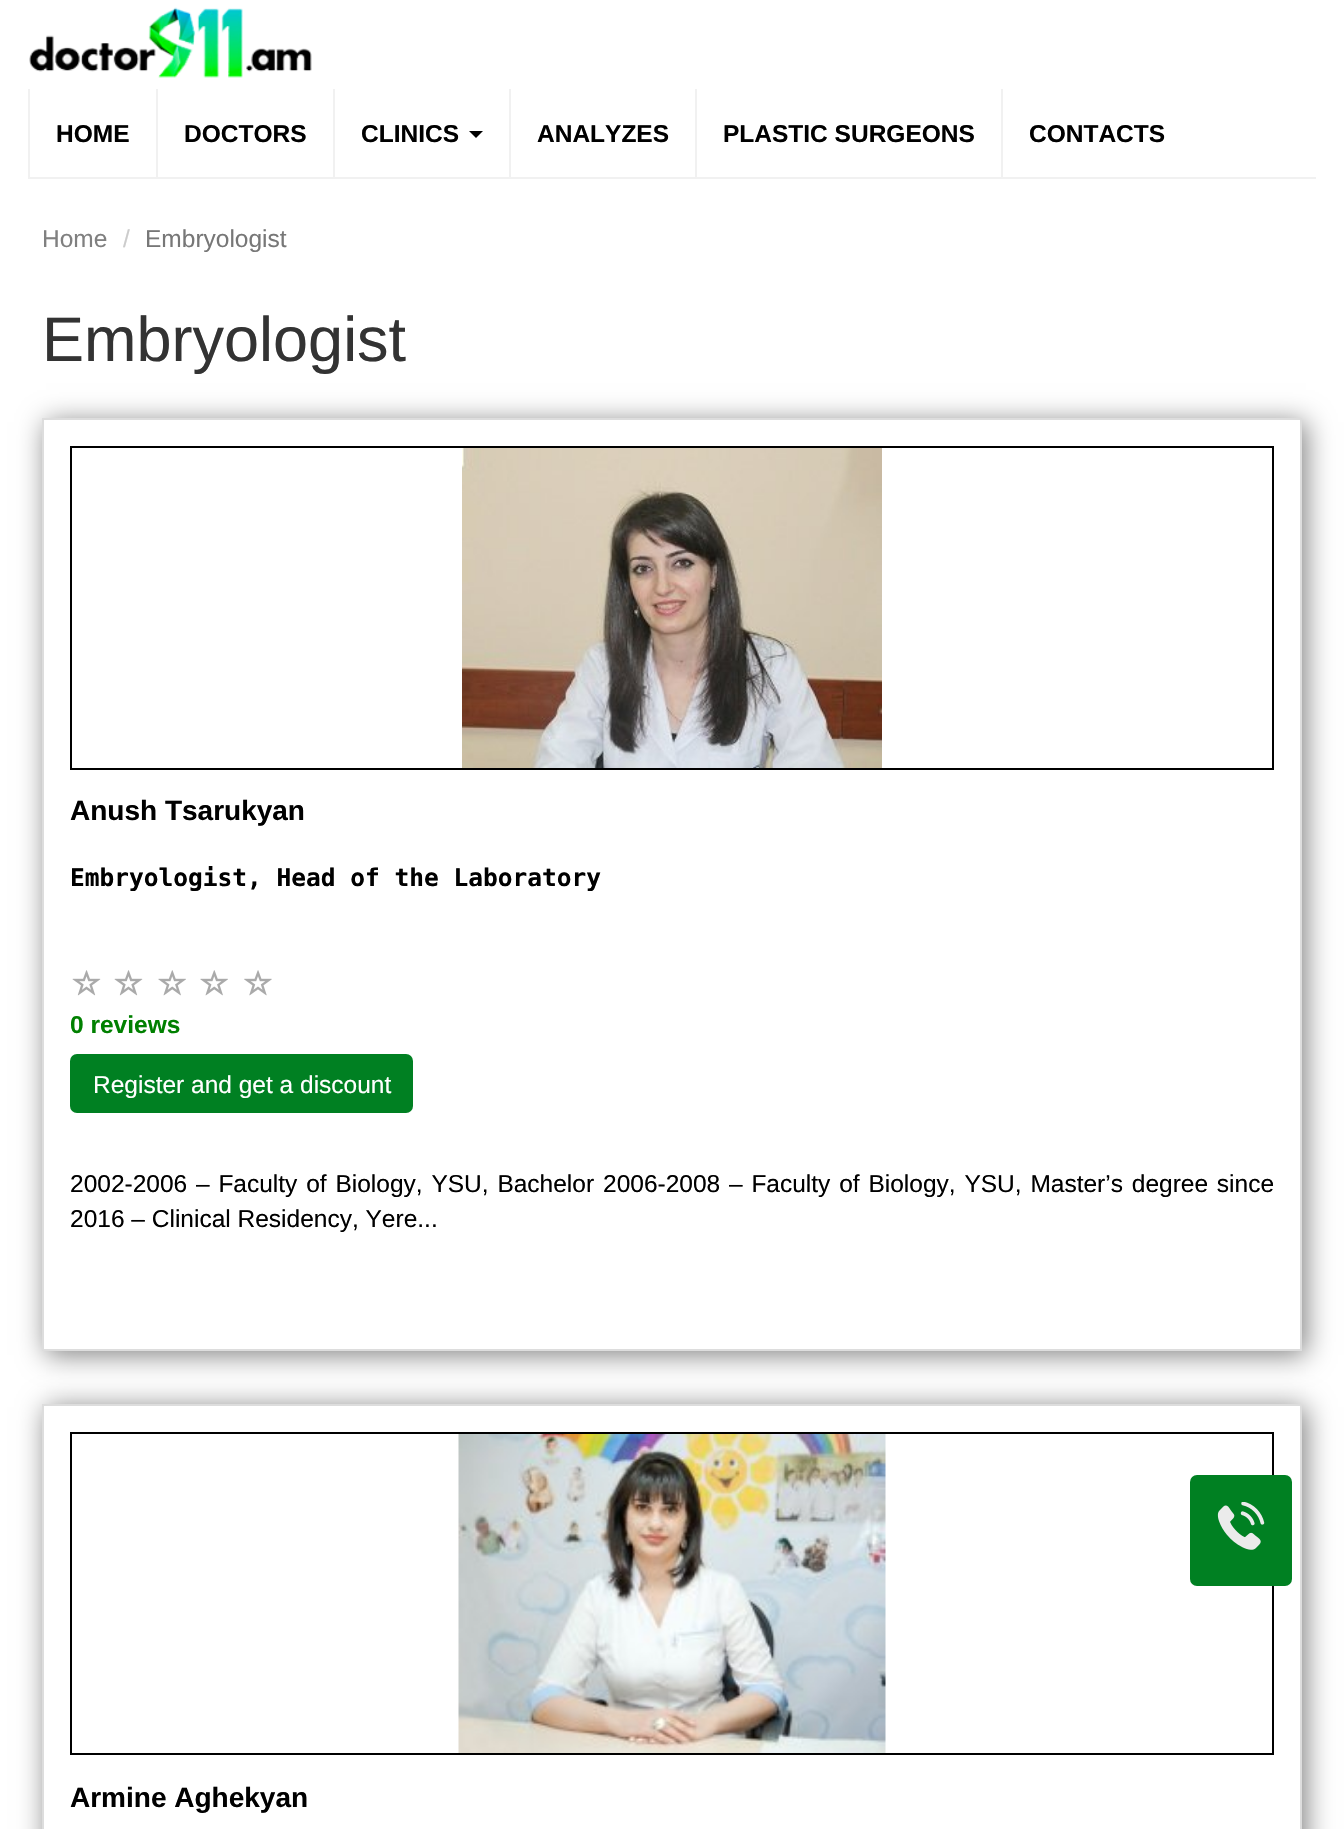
#include "include/core/SkBlurTypes.h"
#include "include/core/SkCanvas.h"
#include "include/core/SkData.h"
#include "include/core/SkFont.h"
#include "include/core/SkFontMgr.h"
#include "include/core/SkImage.h"
#include "include/core/SkMaskFilter.h"
#include "include/core/SkPaint.h"
#include "include/core/SkPathBuilder.h"
#include "include/core/SkTextBlob.h"
#include "include/effects/SkDashPathEffect.h"
#include "include/effects/SkGradientShader.h"
#include "include/utils/SkParsePath.h"

extern sk_sp<SkFontMgr> fontMgr;

static SkFont font(const char* family, int weight, float size, bool italic = false) {
    SkFontStyle style(weight, SkFontStyle::kNormal_Width,
        italic ? SkFontStyle::kItalic_Slant : SkFontStyle::kUpright_Slant);
    SkFont result(fontMgr->matchFamilyStyle(family, style), size);
    result.setSubpixel(true);
    return result;
}

static void drawLabel(SkCanvas* canvas, const char* s, float x, float y, const SkFont& font, SkColor color) {
    SkPaint ink(SkColor4f::FromColor(color));
    ink.setAntiAlias(true);
    canvas->drawString(s, x, y, font, ink);
}

static void drawTracked(SkCanvas* canvas, const char* s, float x, float y, const SkFont& font, const SkPaint& ink, float letter, float word) {
    std::vector<SkGlyphID> glyphs(font.countText(s, strlen(s), SkTextEncoding::kUTF8));
    std::vector<float> xs(glyphs.size());
    font.textToGlyphs(s, strlen(s), SkTextEncoding::kUTF8, glyphs);
    font.getXPos(glyphs, xs, x);
    float extra = 0;
    for (size_t i = 0; i < glyphs.size(); i++) {
        xs[i] += extra;
        extra += letter + word * (glyphs[i] == font.unicharToGlyph(' '));
    }
    canvas->drawTextBlob(SkTextBlob::MakeFromPosHGlyphs(glyphs, xs, y, font), 0, 0, ink);
}

static void fillRect(SkCanvas* canvas, float x, float y, float w, float h, SkColor color) {
    SkPaint ink(SkColor4f::FromColor(color));
    ink.setAntiAlias(true);
    canvas->drawRect(SkRect::MakeXYWH(x, y, w, h), ink);
}

static void fillRRect(SkCanvas* canvas, float x, float y, float w, float h, float radius, SkColor color) {
    SkPaint ink(SkColor4f::FromColor(color));
    ink.setAntiAlias(true);
    canvas->drawRoundRect(SkRect::MakeXYWH(x, y, w, h), radius, radius, ink);
}

static void drawPhoto(SkCanvas* canvas, const char* path, float x, float y, float w, float h) {
    auto image = SkImages::DeferredFromEncodedData(SkData::MakeFromFileName(path));
    canvas->drawImageRect(image, SkRect::MakeXYWH(x, y, w, h), SkSamplingOptions());
}

static SkPath parsePath(const char* data, bool evenOdd = false) {
    SkPath result = *SkParsePath::FromSVGString(data);
    if (evenOdd) result.setFillType(SkPathFillType::kEvenOdd);
    return result;
}

void draw(SkCanvas* canvas) {
    SkPaint paint;
    paint.setAntiAlias(true);
    canvas->clear(0xFFFFFFFF);
    drawPhoto(canvas, "assets/img1.png", 29, 7, 283, 71);
    fillRect(canvas, 28, 177, 1288, 2, 0xFFF1F1F1);
    fillRect(canvas, 28, 89, 2, 88, 0xFFF1F1F1);
    SkFont font1 = font("Liberation Sans", 700, 24.5f);
    drawLabel(canvas, "HOME", 56, 142, font1, 0xFF000000);
    fillRect(canvas, 156, 89, 2, 88, 0xFFF1F1F1);
    drawLabel(canvas, "DOCTORS", 184, 142, font1, 0xFF000000);
    fillRect(canvas, 333, 89, 2, 88, 0xFFF1F1F1);
    drawLabel(canvas, "CLINICS", 361, 142, font1, 0xFF000000);
    paint.setColor(0xFF000000);
    canvas->drawPath(parsePath("M469 131H483L476 138Z"), paint);
    fillRect(canvas, 509, 89, 2, 88, 0xFFF1F1F1);
    drawLabel(canvas, "ANALYZES", 537, 142, font1, 0xFF000000);
    fillRect(canvas, 695, 89, 2, 88, 0xFFF1F1F1);
    drawLabel(canvas, "PLASTIC SURGEONS", 723, 142, font1, 0xFF000000);
    fillRect(canvas, 1001, 89, 2, 88, 0xFFF1F1F1);
    drawLabel(canvas, "CONTACTS", 1029, 142, font1, 0xFF000000);
    SkFont font2 = font("Liberation Sans", 400, 24.5f);
    drawLabel(canvas, "Home", 42, 247, font2, 0xFF808080);
    drawLabel(canvas, "/", 123, 247, font2, 0xFFCCCCCC);
    drawLabel(canvas, "Embryologist", 145, 247, font2, 0xFF777777);
    SkFont font3 = font("Liberation Sans", 400, 63);
    drawLabel(canvas, "Embryologist", 42, 361, font3, 0xFF333333);
    paint.setColor(0xFF808080);
    paint.setMaskFilter(SkMaskFilter::MakeBlur(kNormal_SkBlurStyle, 13));
    canvas->drawRect(SkRect::MakeXYWH(46, 422, 1260, 933), paint);
    paint.setMaskFilter(nullptr);
    paint.setColor(0xFFFFFFFF);
    canvas->drawRect(SkRect::MakeXYWH(43, 419, 1258, 931), paint);
    paint.setStroke(true);
    paint.setStrokeWidth(2);
    paint.setColor(0xFFDDDDDD);
    canvas->drawRect(SkRect::MakeXYWH(43, 419, 1258, 931), paint);
    drawPhoto(canvas, "assets/img2.png", 462, 448, 420, 320);
    paint.setColor(0xFF000000);
    canvas->drawRect(SkRect::MakeXYWH(71, 447, 1202, 322), paint);
    SkFont font4 = font("Liberation Sans", 700, 28);
    drawLabel(canvas, "Anush Tsarukyan", 70, 820, font4, 0xFF000000);
    SkFont font5 = font("DejaVu Sans Mono", 700, 24.5f);
    drawLabel(canvas, "Embryologist, Head of the Laboratory", 70, 886, font5, 0xFF000000);
    drawPhoto(canvas, "assets/img3.png", 72, 970, 29, 26);
    drawPhoto(canvas, "assets/img3.png", 114, 970, 29, 26);
    drawPhoto(canvas, "assets/img4.png", 158, 970, 28, 26);
    drawPhoto(canvas, "assets/img4.png", 200, 970, 28, 26);
    drawPhoto(canvas, "assets/img5.png", 244, 970, 28, 26);
    drawLabel(canvas, "0 reviews", 70, 1033, font1, 0xFF008000);
    fillRRect(canvas, 70, 1054, 343, 59, 7, 0xFF008022);
    drawLabel(canvas, "Register and get a discount", 93, 1093, font2, 0xFFFFFFFF);
    paint.setStroke(false);
    drawTracked(canvas, "2002-2006 – Faculty of Biology, YSU, Bachelor", 70, 1192, font2, paint, 0, 2);
    drawTracked(canvas, "2006-2008 – Faculty of Biology, YSU, Master’s degree since", 603, 1192, font2, paint, 0, 2);
    drawLabel(canvas, "2016 – Clinical Residency, Yere...", 70, 1227, font2, 0xFF000000);
    canvas->save();
    canvas->clipPath(parsePath("M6 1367H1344V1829H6ZM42 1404H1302V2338H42Z", true), true);
    paint.setColor(0xFF808080);
    paint.setMaskFilter(SkMaskFilter::MakeBlur(kNormal_SkBlurStyle, 13));
    canvas->drawRect(SkRect::MakeXYWH(46, 1407, 1260, 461), paint);
    paint.setMaskFilter(nullptr);
    canvas->restore();
    paint.setStroke(true);
    paint.setColor(0xFFDDDDDD);
    canvas->drawRect(SkRect::MakeXYWH(43, 1405, 1258, 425), paint);
    drawPhoto(canvas, "assets/img6.png", 458, 1434, 428, 319);
    paint.setColor(0xFF000000);
    canvas->drawRect(SkRect::MakeXYWH(71, 1433, 1202, 321), paint);
    drawLabel(canvas, "Armine Aghekyan", 70, 1807, font4, 0xFF000000);
    fillRRect(canvas, 1190, 1475, 102, 111, 7, 0xFF008022);
    drawPhoto(canvas, "assets/img7.png", 1217, 1502, 48, 48);
}
